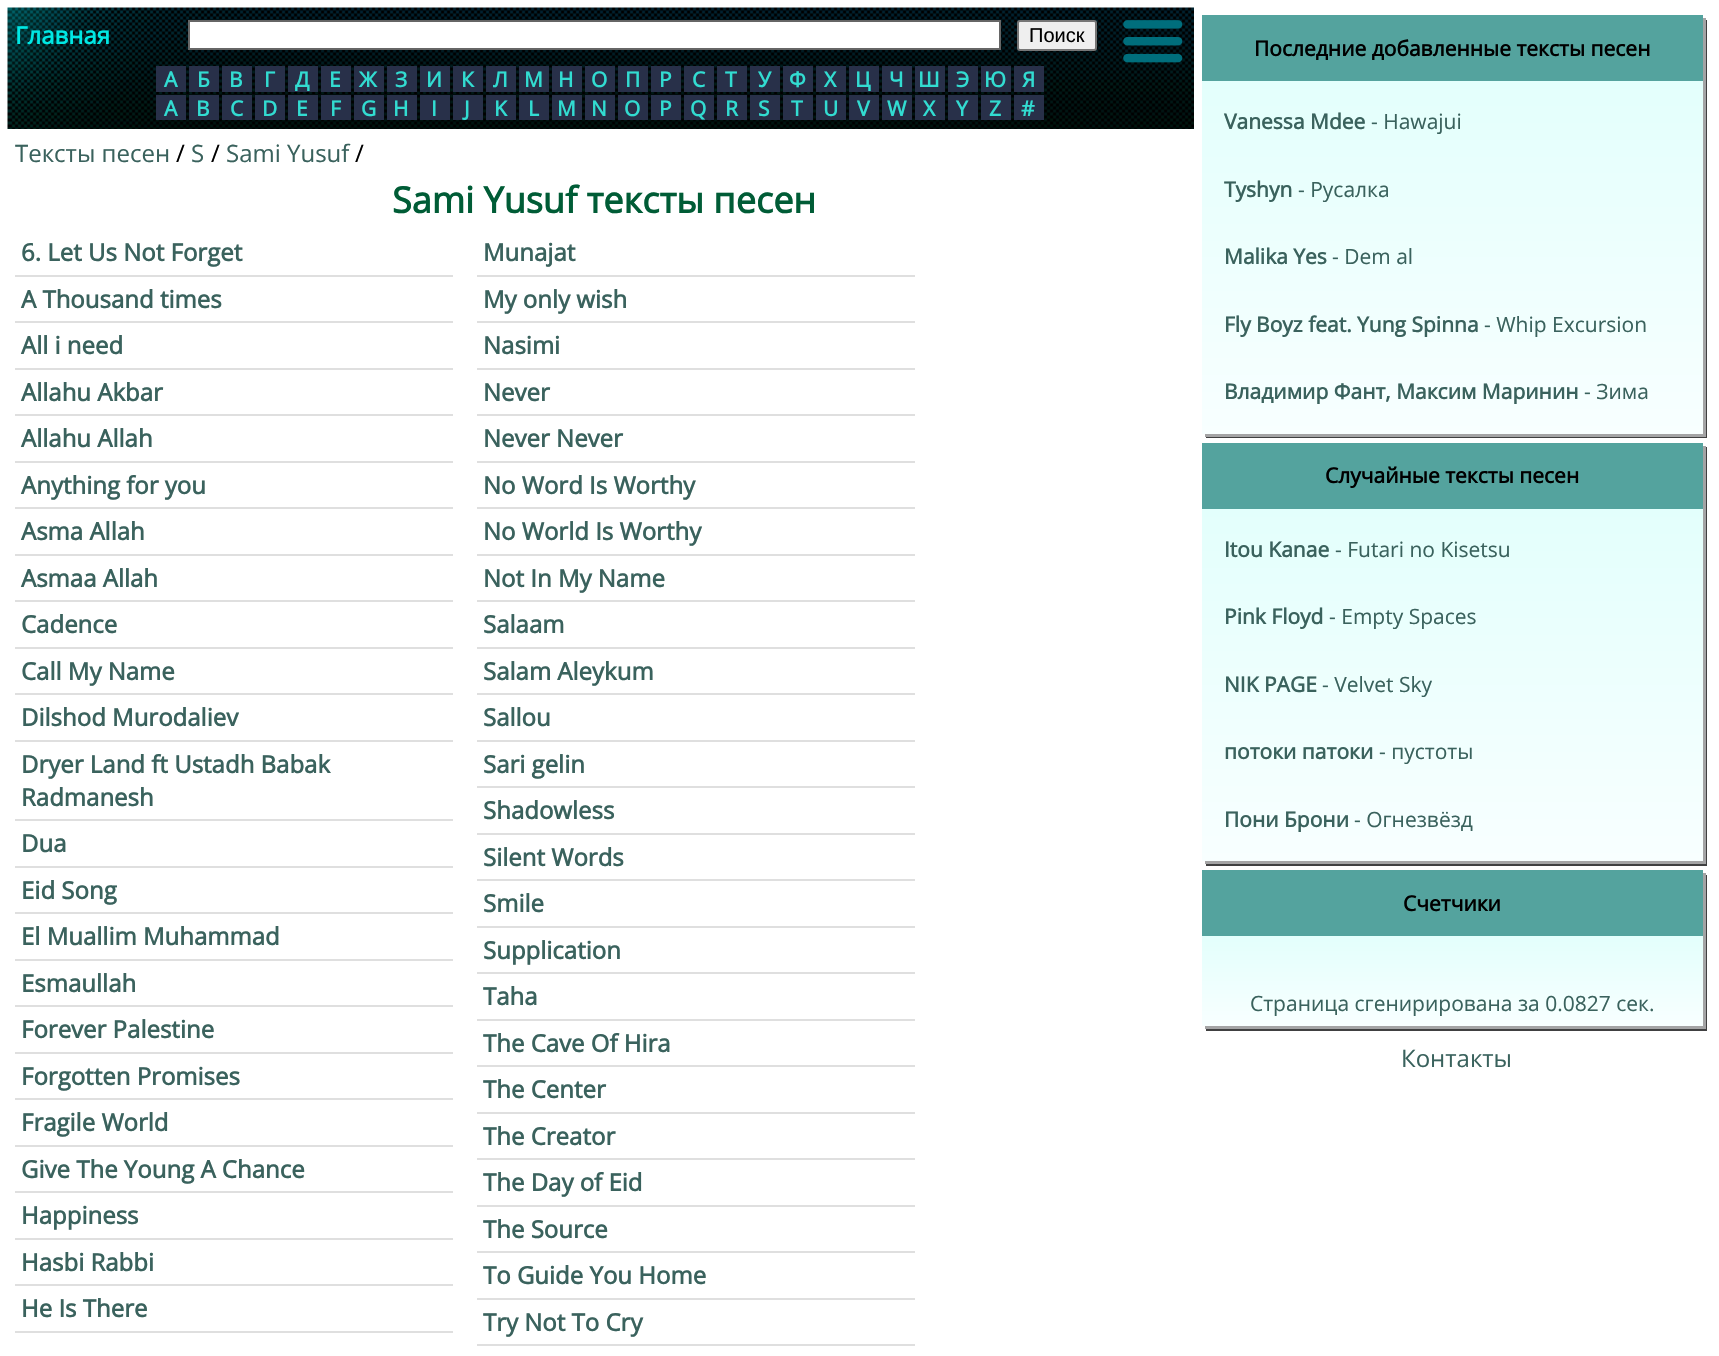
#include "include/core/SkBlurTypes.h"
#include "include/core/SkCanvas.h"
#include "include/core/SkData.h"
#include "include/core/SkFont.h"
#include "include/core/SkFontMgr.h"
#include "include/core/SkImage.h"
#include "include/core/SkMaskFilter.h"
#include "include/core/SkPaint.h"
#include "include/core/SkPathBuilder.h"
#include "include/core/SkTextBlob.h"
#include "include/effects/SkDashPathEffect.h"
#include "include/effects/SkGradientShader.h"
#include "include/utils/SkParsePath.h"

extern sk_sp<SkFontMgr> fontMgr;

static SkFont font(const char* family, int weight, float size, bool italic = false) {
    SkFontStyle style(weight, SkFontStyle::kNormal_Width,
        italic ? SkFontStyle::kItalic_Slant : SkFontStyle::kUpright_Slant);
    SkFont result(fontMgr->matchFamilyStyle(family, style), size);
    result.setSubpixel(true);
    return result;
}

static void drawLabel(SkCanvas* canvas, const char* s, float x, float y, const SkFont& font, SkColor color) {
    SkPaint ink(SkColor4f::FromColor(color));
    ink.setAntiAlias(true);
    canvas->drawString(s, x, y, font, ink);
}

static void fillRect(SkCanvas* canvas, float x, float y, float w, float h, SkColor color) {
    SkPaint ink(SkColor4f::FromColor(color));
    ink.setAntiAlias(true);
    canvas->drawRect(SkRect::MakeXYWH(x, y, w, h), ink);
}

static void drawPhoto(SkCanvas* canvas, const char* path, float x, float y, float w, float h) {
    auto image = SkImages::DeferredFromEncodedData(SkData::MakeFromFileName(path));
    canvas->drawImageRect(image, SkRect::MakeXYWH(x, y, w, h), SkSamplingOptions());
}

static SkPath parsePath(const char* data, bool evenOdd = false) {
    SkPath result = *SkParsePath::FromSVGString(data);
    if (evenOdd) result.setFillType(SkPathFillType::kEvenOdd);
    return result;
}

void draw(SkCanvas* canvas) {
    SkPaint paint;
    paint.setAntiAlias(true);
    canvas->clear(0xFFFFFFFF);
    drawPhoto(canvas, "assets/img1.png", 7, 7, 1187, 122);
    SkFont font1 = font("Open Sans", 700, 24);
    drawLabel(canvas, "Главная", 15, 44, font1, 0xFF00E8E4);
    paint.setColor(0xFFFFFFFF);
    canvas->drawRect(SkRect::MakeXYWH(189, 21, 811, 28), paint);
    paint.setStroke(true);
    paint.setStrokeWidth(2);
    paint.setColor(0xFF666666);
    canvas->drawRect(SkRect::MakeXYWH(189, 21, 811, 28), paint);
    paint.setStroke(false);
    paint.setColor(0xFFEFEFEF);
    canvas->drawRoundRect(SkRect::MakeXYWH(1018, 21, 78, 29), 2, 2, paint);
    paint.setStroke(true);
    paint.setColor(0xFF767676);
    canvas->drawRoundRect(SkRect::MakeXYWH(1018, 21, 78, 29), 2, 2, paint);
    SkFont font2 = font("Liberation Sans", 400, 20);
    drawLabel(canvas, "Поиск", 1029, 42, font2, 0xFF000000);
    drawPhoto(canvas, "assets/img2.png", 1123, 20, 60, 43);
    fillRect(canvas, 156, 66, 30, 26, 0xFF283049);
    SkFont font3 = font("Open Sans", 700, 21);
    drawLabel(canvas, "А", 164, 87, font3, 0xFF32DCD1);
    fillRect(canvas, 189, 66, 30, 26, 0xFF283049);
    drawLabel(canvas, "Б", 197, 87, font3, 0xFF32DCD1);
    fillRect(canvas, 222, 66, 30, 26, 0xFF283049);
    drawLabel(canvas, "В", 229, 87, font3, 0xFF32DCD1);
    fillRect(canvas, 255, 66, 30, 26, 0xFF283049);
    drawLabel(canvas, "Г", 264, 87, font3, 0xFF32DCD1);
    fillRect(canvas, 288, 66, 30, 26, 0xFF283049);
    drawLabel(canvas, "Д", 295, 87, font3, 0xFF32DCD1);
    fillRect(canvas, 321, 66, 30, 26, 0xFF283049);
    drawLabel(canvas, "Е", 329, 87, font3, 0xFF32DCD1);
    fillRect(canvas, 354, 66, 30, 26, 0xFF283049);
    drawLabel(canvas, "Ж", 359, 87, font3, 0xFF32DCD1);
    fillRect(canvas, 387, 66, 30, 26, 0xFF283049);
    drawLabel(canvas, "З", 395, 87, font3, 0xFF32DCD1);
    fillRect(canvas, 420, 66, 30, 26, 0xFF283049);
    drawLabel(canvas, "И", 426, 87, font3, 0xFF32DCD1);
    fillRect(canvas, 453, 66, 30, 26, 0xFF283049);
    drawLabel(canvas, "К", 461, 87, font3, 0xFF32DCD1);
    fillRect(canvas, 486, 66, 30, 26, 0xFF283049);
    drawLabel(canvas, "Л", 493, 87, font3, 0xFF32DCD1);
    fillRect(canvas, 519, 66, 30, 26, 0xFF283049);
    drawLabel(canvas, "М", 524, 87, font3, 0xFF32DCD1);
    fillRect(canvas, 552, 66, 30, 26, 0xFF283049);
    drawLabel(canvas, "Н", 558, 87, font3, 0xFF32DCD1);
    fillRect(canvas, 585, 66, 30, 26, 0xFF283049);
    drawLabel(canvas, "О", 591, 87, font3, 0xFF32DCD1);
    fillRect(canvas, 618, 66, 30, 26, 0xFF283049);
    drawLabel(canvas, "П", 625, 87, font3, 0xFF32DCD1);
    fillRect(canvas, 651, 66, 30, 26, 0xFF283049);
    drawLabel(canvas, "Р", 659, 87, font3, 0xFF32DCD1);
    fillRect(canvas, 684, 66, 30, 26, 0xFF283049);
    drawLabel(canvas, "С", 692, 87, font3, 0xFF32DCD1);
    fillRect(canvas, 717, 66, 30, 26, 0xFF283049);
    drawLabel(canvas, "Т", 725, 87, font3, 0xFF32DCD1);
    fillRect(canvas, 750, 66, 30, 26, 0xFF283049);
    drawLabel(canvas, "У", 758, 87, font3, 0xFF32DCD1);
    fillRect(canvas, 783, 66, 30, 26, 0xFF283049);
    drawLabel(canvas, "Ф", 789, 87, font3, 0xFF32DCD1);
    fillRect(canvas, 816, 66, 30, 26, 0xFF283049);
    drawLabel(canvas, "Х", 824, 87, font3, 0xFF32DCD1);
    fillRect(canvas, 849, 66, 30, 26, 0xFF283049);
    drawLabel(canvas, "Ц", 855, 87, font3, 0xFF32DCD1);
    fillRect(canvas, 882, 66, 30, 26, 0xFF283049);
    drawLabel(canvas, "Ч", 889, 87, font3, 0xFF32DCD1);
    fillRect(canvas, 915, 66, 30, 26, 0xFF283049);
    drawLabel(canvas, "Ш", 918, 87, font3, 0xFF32DCD1);
    fillRect(canvas, 948, 66, 30, 26, 0xFF283049);
    drawLabel(canvas, "Э", 956, 87, font3, 0xFF32DCD1);
    fillRect(canvas, 981, 66, 30, 26, 0xFF283049);
    drawLabel(canvas, "Ю", 984, 87, font3, 0xFF32DCD1);
    fillRect(canvas, 1014, 66, 30, 26, 0xFF283049);
    drawLabel(canvas, "Я", 1022, 87, font3, 0xFF32DCD1);
    fillRect(canvas, 156, 95, 30, 25, 0xFF283049);
    drawLabel(canvas, "A", 164, 116, font3, 0xFF32DCD1);
    fillRect(canvas, 189, 95, 30, 25, 0xFF283049);
    drawLabel(canvas, "B", 196, 116, font3, 0xFF32DCD1);
    fillRect(canvas, 222, 95, 30, 25, 0xFF283049);
    drawLabel(canvas, "C", 230, 116, font3, 0xFF32DCD1);
    fillRect(canvas, 255, 95, 30, 25, 0xFF283049);
    drawLabel(canvas, "D", 262, 116, font3, 0xFF32DCD1);
    fillRect(canvas, 288, 95, 30, 25, 0xFF283049);
    drawLabel(canvas, "E", 296, 116, font3, 0xFF32DCD1);
    fillRect(canvas, 321, 95, 30, 25, 0xFF283049);
    drawLabel(canvas, "F", 330, 116, font3, 0xFF32DCD1);
    fillRect(canvas, 354, 95, 30, 25, 0xFF283049);
    drawLabel(canvas, "G", 361, 116, font3, 0xFF32DCD1);
    fillRect(canvas, 387, 95, 30, 25, 0xFF283049);
    drawLabel(canvas, "H", 393, 116, font3, 0xFF32DCD1);
    fillRect(canvas, 420, 95, 30, 25, 0xFF283049);
    drawLabel(canvas, "I", 431, 116, font3, 0xFF32DCD1);
    fillRect(canvas, 453, 95, 30, 25, 0xFF283049);
    drawLabel(canvas, "J", 464, 116, font3, 0xFF32DCD1);
    fillRect(canvas, 486, 95, 30, 25, 0xFF283049);
    drawLabel(canvas, "K", 494, 116, font3, 0xFF32DCD1);
    fillRect(canvas, 519, 95, 30, 25, 0xFF283049);
    drawLabel(canvas, "L", 528, 116, font3, 0xFF32DCD1);
    fillRect(canvas, 552, 95, 30, 25, 0xFF283049);
    drawLabel(canvas, "M", 557, 116, font3, 0xFF32DCD1);
    fillRect(canvas, 585, 95, 30, 25, 0xFF283049);
    drawLabel(canvas, "N", 591, 116, font3, 0xFF32DCD1);
    fillRect(canvas, 618, 95, 30, 25, 0xFF283049);
    drawLabel(canvas, "O", 624, 116, font3, 0xFF32DCD1);
    fillRect(canvas, 651, 95, 30, 25, 0xFF283049);
    drawLabel(canvas, "P", 659, 116, font3, 0xFF32DCD1);
    fillRect(canvas, 684, 95, 30, 25, 0xFF283049);
    drawLabel(canvas, "Q", 690, 116, font3, 0xFF32DCD1);
    fillRect(canvas, 717, 95, 30, 25, 0xFF283049);
    drawLabel(canvas, "R", 725, 116, font3, 0xFF32DCD1);
    fillRect(canvas, 750, 95, 30, 25, 0xFF283049);
    drawLabel(canvas, "S", 758, 116, font3, 0xFF32DCD1);
    fillRect(canvas, 783, 95, 30, 25, 0xFF283049);
    drawLabel(canvas, "T", 791, 116, font3, 0xFF32DCD1);
    fillRect(canvas, 816, 95, 30, 25, 0xFF283049);
    drawLabel(canvas, "U", 823, 116, font3, 0xFF32DCD1);
    fillRect(canvas, 849, 95, 30, 25, 0xFF283049);
    drawLabel(canvas, "V", 857, 116, font3, 0xFF32DCD1);
    fillRect(canvas, 882, 95, 30, 25, 0xFF283049);
    drawLabel(canvas, "W", 887, 116, font3, 0xFF32DCD1);
    fillRect(canvas, 915, 95, 30, 25, 0xFF283049);
    drawLabel(canvas, "X", 923, 116, font3, 0xFF32DCD1);
    fillRect(canvas, 948, 95, 30, 25, 0xFF283049);
    drawLabel(canvas, "Y", 956, 116, font3, 0xFF32DCD1);
    fillRect(canvas, 981, 95, 30, 25, 0xFF283049);
    drawLabel(canvas, "Z", 989, 116, font3, 0xFF32DCD1);
    fillRect(canvas, 1014, 95, 30, 25, 0xFF283049);
    drawLabel(canvas, "#", 1021, 116, font3, 0xFF32DCD1);
    SkFont font4 = font("Open Sans", 400, 24);
    drawLabel(canvas, "Тексты песен", 15, 162, font4, 0xFF3A625D);
    drawLabel(canvas, "/", 176, 162, font4, 0xFF000000);
    drawLabel(canvas, "S", 191, 162, font4, 0xFF3A625D);
    drawLabel(canvas, "/", 211, 162, font4, 0xFF000000);
    drawLabel(canvas, "Sami Yusuf", 226, 162, font4, 0xFF3A625D);
    drawLabel(canvas, "/", 355, 162, font4, 0xFF000000);
    SkFont font5 = font("Open Sans", 700, 36);
    drawLabel(canvas, "Sami Yusuf тексты песен", 392, 213, font5, 0xFF005C36);
    fillRect(canvas, 15, 275, 438, 2, 0xFFDFDFDF);
    drawLabel(canvas, "6. Let Us Not Forget", 21, 261, font1, 0xFF3A625D);
    fillRect(canvas, 477, 275, 438, 2, 0xFFDFDFDF);
    drawLabel(canvas, "Munajat", 483, 261, font1, 0xFF3A625D);
    fillRect(canvas, 15, 321, 438, 2, 0xFFDFDFDF);
    drawLabel(canvas, "A Thousand times", 21, 308, font1, 0xFF3A625D);
    fillRect(canvas, 477, 321, 438, 2, 0xFFDFDFDF);
    drawLabel(canvas, "My only wish", 483, 308, font1, 0xFF3A625D);
    fillRect(canvas, 15, 368, 438, 2, 0xFFDFDFDF);
    drawLabel(canvas, "All i need", 21, 354, font1, 0xFF3A625D);
    fillRect(canvas, 477, 368, 438, 2, 0xFFDFDFDF);
    drawLabel(canvas, "Nasimi", 483, 354, font1, 0xFF3A625D);
    fillRect(canvas, 15, 414, 438, 2, 0xFFDFDFDF);
    drawLabel(canvas, "Allahu Akbar", 21, 401, font1, 0xFF3A625D);
    fillRect(canvas, 477, 414, 438, 2, 0xFFDFDFDF);
    drawLabel(canvas, "Never", 483, 401, font1, 0xFF3A625D);
    fillRect(canvas, 15, 461, 438, 2, 0xFFDFDFDF);
    drawLabel(canvas, "Allahu Allah", 21, 447, font1, 0xFF3A625D);
    fillRect(canvas, 477, 461, 438, 2, 0xFFDFDFDF);
    drawLabel(canvas, "Never Never", 483, 447, font1, 0xFF3A625D);
    fillRect(canvas, 15, 507, 438, 2, 0xFFDFDFDF);
    drawLabel(canvas, "Anything for you", 21, 494, font1, 0xFF3A625D);
    fillRect(canvas, 477, 507, 438, 2, 0xFFDFDFDF);
    drawLabel(canvas, "No Word Is Worthy", 483, 494, font1, 0xFF3A625D);
    fillRect(canvas, 15, 554, 438, 2, 0xFFDFDFDF);
    drawLabel(canvas, "Asma Allah", 21, 540, font1, 0xFF3A625D);
    fillRect(canvas, 477, 554, 438, 2, 0xFFDFDFDF);
    drawLabel(canvas, "No World Is Worthy", 483, 540, font1, 0xFF3A625D);
    fillRect(canvas, 15, 600, 438, 2, 0xFFDFDFDF);
    drawLabel(canvas, "Asmaa Allah", 21, 587, font1, 0xFF3A625D);
    fillRect(canvas, 477, 600, 438, 2, 0xFFDFDFDF);
    drawLabel(canvas, "Not In My Name", 483, 587, font1, 0xFF3A625D);
    fillRect(canvas, 15, 647, 438, 2, 0xFFDFDFDF);
    drawLabel(canvas, "Cadence", 21, 633, font1, 0xFF3A625D);
    fillRect(canvas, 477, 647, 438, 2, 0xFFDFDFDF);
    drawLabel(canvas, "Salaam", 483, 633, font1, 0xFF3A625D);
    fillRect(canvas, 15, 693, 438, 2, 0xFFDFDFDF);
    drawLabel(canvas, "Call My Name", 21, 680, font1, 0xFF3A625D);
    fillRect(canvas, 477, 693, 438, 2, 0xFFDFDFDF);
    drawLabel(canvas, "Salam Aleykum", 483, 680, font1, 0xFF3A625D);
    fillRect(canvas, 15, 740, 438, 2, 0xFFDFDFDF);
    drawLabel(canvas, "Dilshod Murodaliev", 21, 726, font1, 0xFF3A625D);
    fillRect(canvas, 477, 740, 438, 2, 0xFFDFDFDF);
    drawLabel(canvas, "Sallou", 483, 726, font1, 0xFF3A625D);
    fillRect(canvas, 15, 819, 438, 2, 0xFFDFDFDF);
    drawLabel(canvas, "Dryer Land ft Ustadh Babak", 21, 773, font1, 0xFF3A625D);
    drawLabel(canvas, "Radmanesh", 21, 806, font1, 0xFF3A625D);
    fillRect(canvas, 477, 786, 438, 2, 0xFFDFDFDF);
    drawLabel(canvas, "Sari gelin", 483, 773, font1, 0xFF3A625D);
    fillRect(canvas, 477, 833, 438, 2, 0xFFDFDFDF);
    drawLabel(canvas, "Shadowless", 483, 819, font1, 0xFF3A625D);
    fillRect(canvas, 15, 866, 438, 2, 0xFFDFDFDF);
    drawLabel(canvas, "Dua", 21, 852, font1, 0xFF3A625D);
    fillRect(canvas, 477, 879, 438, 2, 0xFFDFDFDF);
    drawLabel(canvas, "Silent Words", 483, 866, font1, 0xFF3A625D);
    fillRect(canvas, 15, 912, 438, 2, 0xFFDFDFDF);
    drawLabel(canvas, "Eid Song", 21, 899, font1, 0xFF3A625D);
    fillRect(canvas, 477, 926, 438, 2, 0xFFDFDFDF);
    drawLabel(canvas, "Smile", 483, 912, font1, 0xFF3A625D);
    fillRect(canvas, 15, 959, 438, 2, 0xFFDFDFDF);
    drawLabel(canvas, "El Muallim Muhammad", 21, 945, font1, 0xFF3A625D);
    fillRect(canvas, 477, 972, 438, 2, 0xFFDFDFDF);
    drawLabel(canvas, "Supplication", 483, 959, font1, 0xFF3A625D);
    fillRect(canvas, 15, 1005, 438, 2, 0xFFDFDFDF);
    drawLabel(canvas, "Esmaullah", 21, 992, font1, 0xFF3A625D);
    fillRect(canvas, 477, 1019, 438, 2, 0xFFDFDFDF);
    drawLabel(canvas, "Taha", 483, 1005, font1, 0xFF3A625D);
    fillRect(canvas, 15, 1052, 438, 2, 0xFFDFDFDF);
    drawLabel(canvas, "Forever Palestine", 21, 1038, font1, 0xFF3A625D);
    fillRect(canvas, 477, 1065, 438, 2, 0xFFDFDFDF);
    drawLabel(canvas, "The Cave Of Hira", 483, 1052, font1, 0xFF3A625D);
    fillRect(canvas, 15, 1098, 438, 2, 0xFFDFDFDF);
    drawLabel(canvas, "Forgotten Promises", 21, 1085, font1, 0xFF3A625D);
    fillRect(canvas, 477, 1112, 438, 2, 0xFFDFDFDF);
    drawLabel(canvas, "The Center", 483, 1098, font1, 0xFF3A625D);
    fillRect(canvas, 15, 1145, 438, 2, 0xFFDFDFDF);
    drawLabel(canvas, "Fragile World", 21, 1131, font1, 0xFF3A625D);
    fillRect(canvas, 477, 1158, 438, 2, 0xFFDFDFDF);
    drawLabel(canvas, "The Creator", 483, 1145, font1, 0xFF3A625D);
    fillRect(canvas, 15, 1191, 438, 2, 0xFFDFDFDF);
    drawLabel(canvas, "Give The Young A Chance", 21, 1178, font1, 0xFF3A625D);
    fillRect(canvas, 477, 1205, 438, 2, 0xFFDFDFDF);
    drawLabel(canvas, "The Day of Eid", 483, 1191, font1, 0xFF3A625D);
    fillRect(canvas, 15, 1238, 438, 2, 0xFFDFDFDF);
    drawLabel(canvas, "Happiness", 21, 1224, font1, 0xFF3A625D);
    fillRect(canvas, 477, 1251, 438, 2, 0xFFDFDFDF);
    drawLabel(canvas, "The Source", 483, 1238, font1, 0xFF3A625D);
    fillRect(canvas, 15, 1284, 438, 2, 0xFFDFDFDF);
    drawLabel(canvas, "Hasbi Rabbi", 21, 1271, font1, 0xFF3A625D);
    fillRect(canvas, 477, 1298, 438, 2, 0xFFDFDFDF);
    drawLabel(canvas, "To Guide You Home", 483, 1284, font1, 0xFF3A625D);
    fillRect(canvas, 15, 1331, 438, 2, 0xFFDFDFDF);
    drawLabel(canvas, "He Is There", 21, 1317, font1, 0xFF3A625D);
    fillRect(canvas, 477, 1344, 438, 2, 0xFFDFDFDF);
    drawLabel(canvas, "Try Not To Cry", 483, 1331, font1, 0xFF3A625D);
    paint.setStroke(false);
    paint.setColor(0xFF404041);
    canvas->drawPath(parsePath("M1206 434V438H1707V20H1702V434Z"), paint);
    paint.setColor(0xFFA4A4A5);
    canvas->drawPath(parsePath("M1205 434V437H1706V18H1702V434Z"), paint);
    fillRect(canvas, 1202, 15, 501, 66, 0xFF54A39E);
    drawLabel(canvas, "Последние добавленные тексты песен", 1254, 56, font3, 0xFF000000);
    {
        const SkColor colors[] = {0xFFE3FFFC, 0xFFF8FFFF};
        const float stops[] = {0, 1};
        const SkPoint ends[] = {{1452, 81}, {1452, 434}};
        paint.setShader(SkGradientShader::MakeLinear(ends, colors, stops, 2, SkTileMode::kClamp));
        paint.setAlpha(255);
    }
    canvas->drawRect(SkRect::MakeXYWH(1202, 81, 501, 353), paint);
    drawLabel(canvas, "Vanessa Mdee", 1224, 129, font3, 0xFF3A625D);
    SkFont font6 = font("Open Sans", 400, 21);
    drawLabel(canvas, "- Hawajui", 1371, 129, font6, 0xFF3A625D);
    drawLabel(canvas, "Tyshyn", 1224, 197, font3, 0xFF3A625D);
    drawLabel(canvas, "- Русалка", 1298, 197, font6, 0xFF3A625D);
    drawLabel(canvas, "Malika Yes", 1224, 264, font3, 0xFF3A625D);
    drawLabel(canvas, "- Dem al", 1332, 264, font6, 0xFF3A625D);
    drawLabel(canvas, "Fly Boyz feat. Yung Spinna", 1224, 332, font3, 0xFF3A625D);
    drawLabel(canvas, "- Whip Excursion", 1484, 332, font6, 0xFF3A625D);
    drawLabel(canvas, "Владимир Фант, Максим Маринин", 1224, 399, font3, 0xFF3A625D);
    drawLabel(canvas, "- Зима", 1584, 399, font6, 0xFF3A625D);
    paint.setShader(nullptr);
    paint.setColor(0xFF404041);
    canvas->drawPath(parsePath("M1206 861V866H1707V447H1702V861Z"), paint);
    paint.setColor(0xFFA4A4A5);
    canvas->drawPath(parsePath("M1205 861V864H1706V446H1702V861Z"), paint);
    fillRect(canvas, 1202, 443, 501, 66, 0xFF54A39E);
    drawLabel(canvas, "Случайные тексты песен", 1325, 483, font3, 0xFF000000);
    {
        const SkColor colors[] = {0xFFE3FFFC, 0xFFF8FFFF};
        const float stops[] = {0, 1};
        const SkPoint ends[] = {{1452, 509}, {1452, 861}};
        paint.setShader(SkGradientShader::MakeLinear(ends, colors, stops, 2, SkTileMode::kClamp));
        paint.setAlpha(255);
    }
    canvas->drawRect(SkRect::MakeXYWH(1202, 509, 501, 352), paint);
    drawLabel(canvas, "Itou Kanae", 1224, 557, font3, 0xFF3A625D);
    drawLabel(canvas, "- Futari no Kisetsu", 1335, 557, font6, 0xFF3A625D);
    drawLabel(canvas, "Pink Floyd", 1224, 624, font3, 0xFF3A625D);
    drawLabel(canvas, "- Empty Spaces", 1329, 624, font6, 0xFF3A625D);
    drawLabel(canvas, "NIK PAGE", 1224, 692, font3, 0xFF3A625D);
    drawLabel(canvas, "- Velvet Sky", 1322, 692, font6, 0xFF3A625D);
    drawLabel(canvas, "потоки патоки", 1224, 759, font3, 0xFF3A625D);
    drawLabel(canvas, "- пустоты", 1379, 759, font6, 0xFF3A625D);
    drawLabel(canvas, "Пони Брони", 1224, 827, font3, 0xFF3A625D);
    drawLabel(canvas, "- Огнезвёзд", 1354, 827, font6, 0xFF3A625D);
    paint.setShader(nullptr);
    paint.setColor(0xFF404041);
    canvas->drawPath(parsePath("M1206 1026V1031H1707V875H1702V1026Z"), paint);
    paint.setColor(0xFFA4A4A5);
    canvas->drawPath(parsePath("M1205 1026V1029H1706V873H1702V1026Z"), paint);
    fillRect(canvas, 1202, 870, 501, 66, 0xFF54A39E);
    drawLabel(canvas, "Счетчики", 1403, 911, font3, 0xFF000000);
    {
        const SkColor colors[] = {0xFFE3FFFC, 0xFFF8FFFF};
        const float stops[] = {0, 1};
        const SkPoint ends[] = {{1452, 936}, {1452, 1026}};
        paint.setShader(SkGradientShader::MakeLinear(ends, colors, stops, 2, SkTileMode::kClamp));
        paint.setAlpha(255);
    }
    canvas->drawRect(SkRect::MakeXYWH(1202, 936, 501, 90), paint);
    drawLabel(canvas, "Страница сгенирирована за 0.0827 сек.", 1250, 1011, font6, 0xFF3A625D);
    drawLabel(canvas, "Контакты", 1401, 1067, font4, 0xFF3A625D);
}
